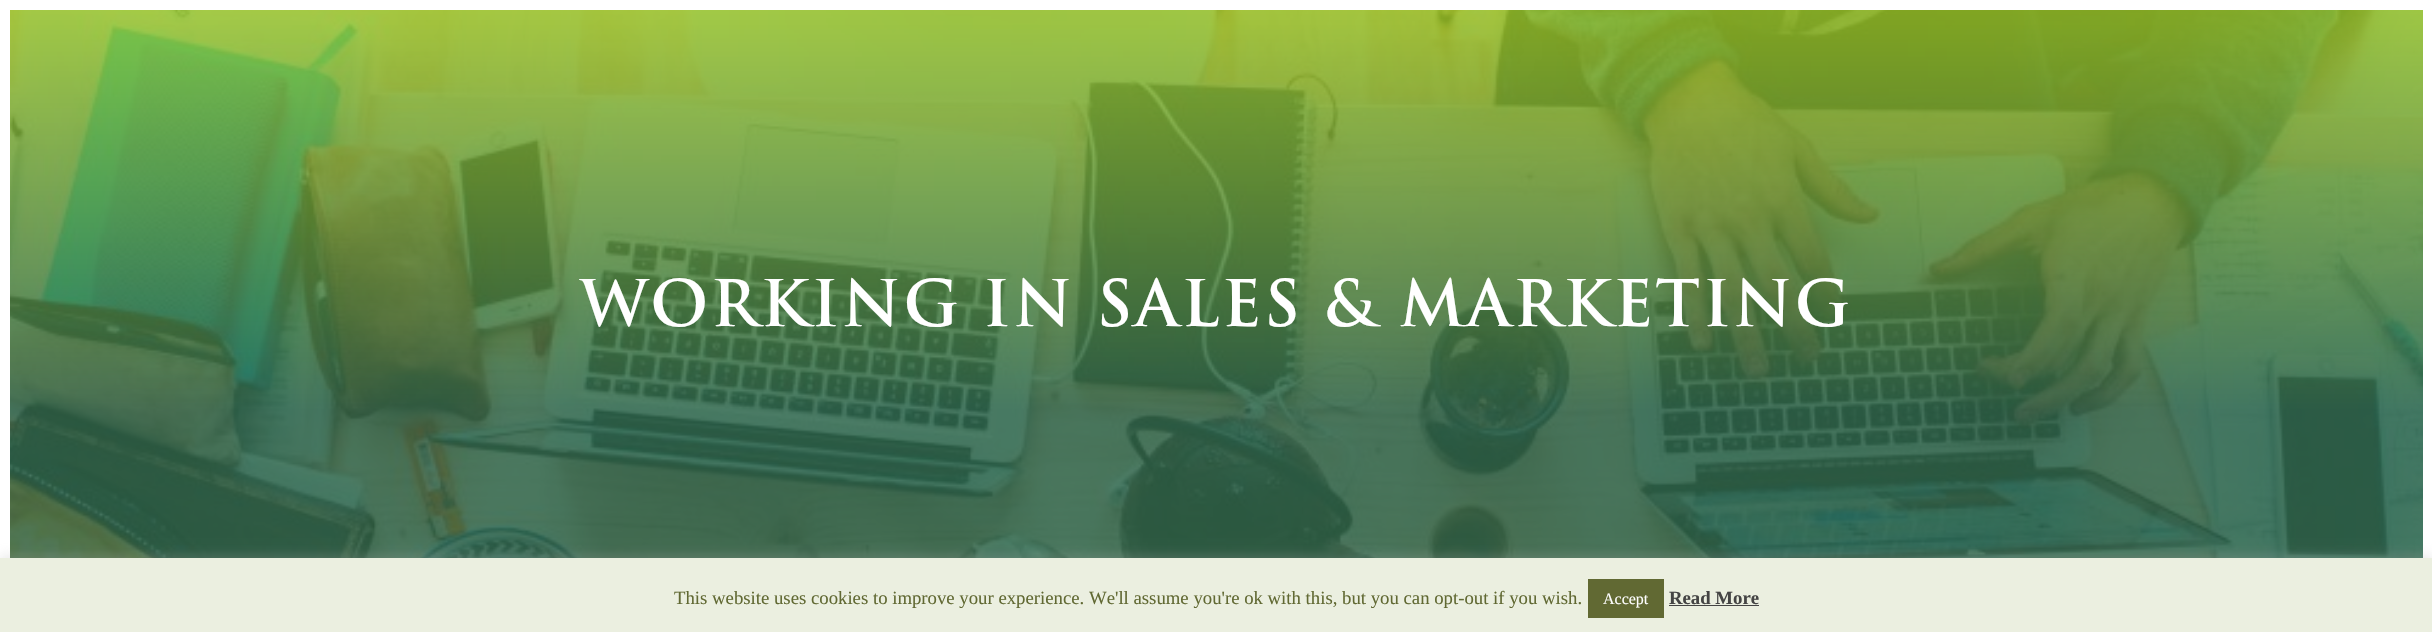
#include "include/core/SkBlurTypes.h"
#include "include/core/SkCanvas.h"
#include "include/core/SkData.h"
#include "include/core/SkFont.h"
#include "include/core/SkFontMgr.h"
#include "include/core/SkImage.h"
#include "include/core/SkMaskFilter.h"
#include "include/core/SkPaint.h"
#include "include/core/SkPathBuilder.h"
#include "include/core/SkTextBlob.h"
#include "include/effects/SkDashPathEffect.h"
#include "include/effects/SkGradientShader.h"
#include "include/utils/SkParsePath.h"

extern sk_sp<SkFontMgr> fontMgr;

static SkFont font(const char* family, int weight, float size, bool italic = false) {
    SkFontStyle style(weight, SkFontStyle::kNormal_Width,
        italic ? SkFontStyle::kItalic_Slant : SkFontStyle::kUpright_Slant);
    SkFont result(fontMgr->matchFamilyStyle(family, style), size);
    result.setSubpixel(true);
    return result;
}

static void drawLabel(SkCanvas* canvas, const char* s, float x, float y, const SkFont& font, SkColor color) {
    SkPaint ink(SkColor4f::FromColor(color));
    ink.setAntiAlias(true);
    canvas->drawString(s, x, y, font, ink);
}

static void drawTracked(SkCanvas* canvas, const char* s, float x, float y, const SkFont& font, const SkPaint& ink, float letter, float word) {
    std::vector<SkGlyphID> glyphs(font.countText(s, strlen(s), SkTextEncoding::kUTF8));
    std::vector<float> xs(glyphs.size());
    font.textToGlyphs(s, strlen(s), SkTextEncoding::kUTF8, glyphs);
    font.getXPos(glyphs, xs, x);
    float extra = 0;
    for (size_t i = 0; i < glyphs.size(); i++) {
        xs[i] += extra;
        extra += letter + word * (glyphs[i] == font.unicharToGlyph(' '));
    }
    canvas->drawTextBlob(SkTextBlob::MakeFromPosHGlyphs(glyphs, xs, y, font), 0, 0, ink);
}

static void fillRect(SkCanvas* canvas, float x, float y, float w, float h, SkColor color) {
    SkPaint ink(SkColor4f::FromColor(color));
    ink.setAntiAlias(true);
    canvas->drawRect(SkRect::MakeXYWH(x, y, w, h), ink);
}

static void drawPhoto(SkCanvas* canvas, const char* path, float x, float y, float w, float h) {
    auto image = SkImages::DeferredFromEncodedData(SkData::MakeFromFileName(path));
    canvas->drawImageRect(image, SkRect::MakeXYWH(x, y, w, h), SkSamplingOptions());
}

void draw(SkCanvas* canvas) {
    SkPaint paint;
    paint.setAntiAlias(true);
    canvas->clear(0xFFFFFFFF);
    drawPhoto(canvas, "assets/img1.png", 10, 10, 2413, 548);
    SkFont font1 = font("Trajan", 700, 62.5f);
    paint.setColor(0xFFFFFFFF);
    drawTracked(canvas, "Working in Sales & Marketing", 580, 326, font1, paint, 2.5f, 0);
    paint.setColor(0x4DACABAB);
    paint.setMaskFilter(SkMaskFilter::MakeBlur(kNormal_SkBlurStyle, 6));
    canvas->drawRect(SkRect::MakeXYWH(0, 556, 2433, 75), paint);
    paint.setMaskFilter(nullptr);
    fillRect(canvas, 0, 558, 2432, 74, 0xFFEBEFE0);
    SkFont font2 = font("Liberation Serif", 400, 18.75f);
    drawLabel(canvas, "This website uses cookies to improve your experience. We'll assume you're ok with this, but you can opt-out if you wish.", 674, 604, font2, 0xFF616933);
    fillRect(canvas, 1588, 579, 76, 39, 0xFF616933);
    SkFont font3 = font("Liberation Serif", 400, 16);
    drawLabel(canvas, "Accept", 1603, 604, font3, 0xFFFFFFFF);
    SkFont font4 = font("Liberation Serif", 700, 18.75f);
    drawLabel(canvas, "Read More", 1669, 604, font4, 0xFF444444);
    fillRect(canvas, 1669, 605, 90, 1, 0xFF444444);
}
